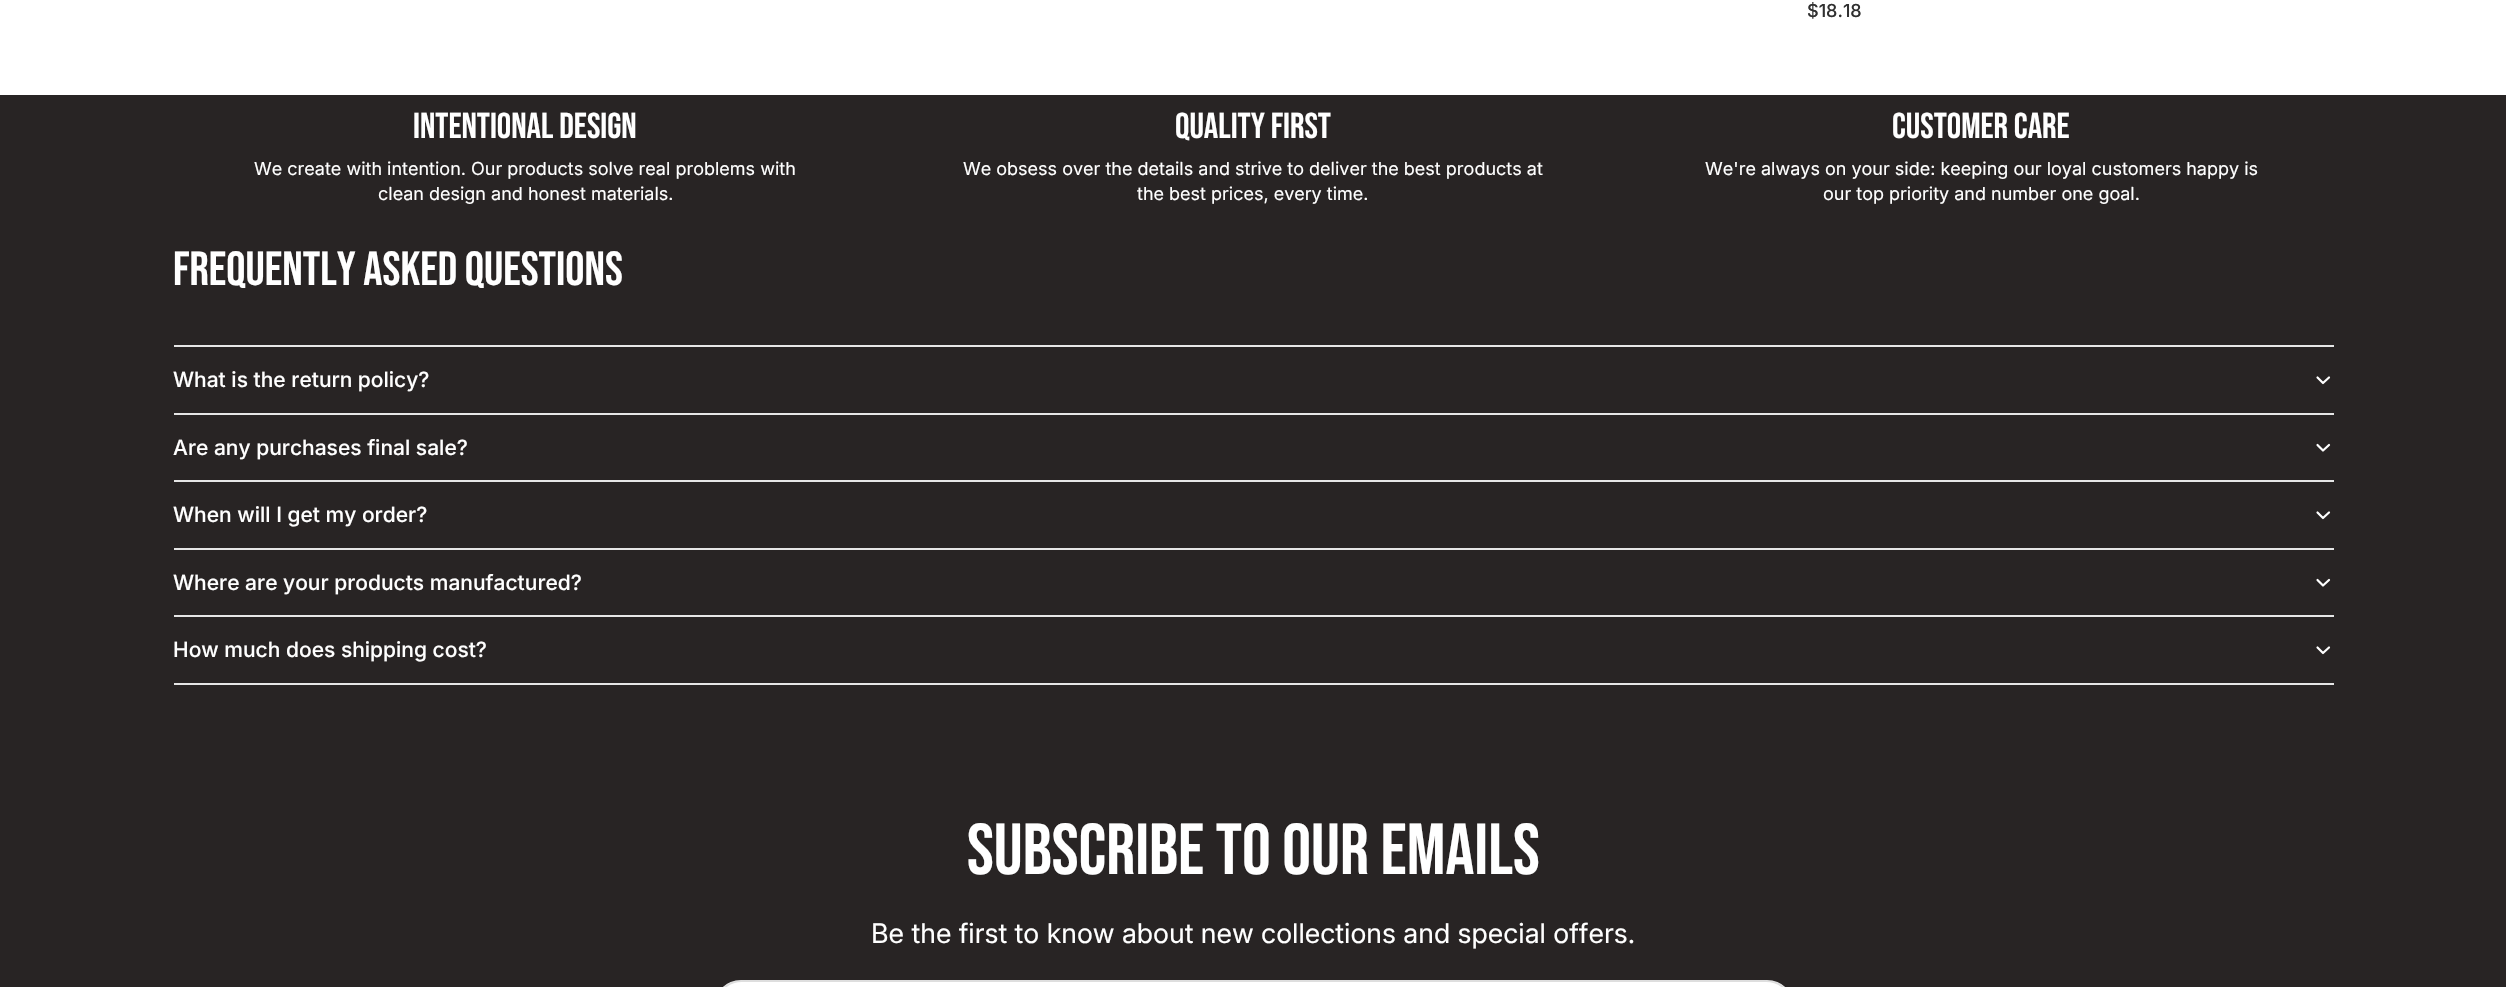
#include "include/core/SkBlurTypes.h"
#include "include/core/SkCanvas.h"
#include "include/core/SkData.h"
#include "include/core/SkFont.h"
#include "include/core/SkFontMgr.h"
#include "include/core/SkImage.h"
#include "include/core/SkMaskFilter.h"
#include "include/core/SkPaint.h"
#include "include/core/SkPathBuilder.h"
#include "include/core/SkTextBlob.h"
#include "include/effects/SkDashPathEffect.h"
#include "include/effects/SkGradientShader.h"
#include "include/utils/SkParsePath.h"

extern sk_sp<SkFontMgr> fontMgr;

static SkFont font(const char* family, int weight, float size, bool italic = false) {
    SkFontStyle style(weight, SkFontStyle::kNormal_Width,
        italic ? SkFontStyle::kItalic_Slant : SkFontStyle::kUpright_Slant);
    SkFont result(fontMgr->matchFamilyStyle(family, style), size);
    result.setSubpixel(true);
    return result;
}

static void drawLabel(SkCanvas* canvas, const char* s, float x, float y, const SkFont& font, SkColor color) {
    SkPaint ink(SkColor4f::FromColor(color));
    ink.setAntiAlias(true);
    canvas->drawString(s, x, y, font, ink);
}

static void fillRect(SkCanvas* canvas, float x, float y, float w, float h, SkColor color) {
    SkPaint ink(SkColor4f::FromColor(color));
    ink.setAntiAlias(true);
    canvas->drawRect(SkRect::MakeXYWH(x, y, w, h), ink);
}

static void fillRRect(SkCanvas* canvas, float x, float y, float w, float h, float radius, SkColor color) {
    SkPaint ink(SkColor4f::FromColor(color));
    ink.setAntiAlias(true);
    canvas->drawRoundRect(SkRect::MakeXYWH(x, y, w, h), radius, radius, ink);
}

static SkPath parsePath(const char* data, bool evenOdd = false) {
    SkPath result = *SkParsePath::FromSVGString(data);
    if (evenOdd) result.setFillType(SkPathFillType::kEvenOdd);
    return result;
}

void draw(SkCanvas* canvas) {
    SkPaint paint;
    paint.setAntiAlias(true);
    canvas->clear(0xFFFFFFFF);
    SkFont font1 = font("Inter", 500, 18);
    drawLabel(canvas, "$18.18", 1807, 17, font1, 0xFF303030);
    fillRect(canvas, 0, 95, 2506, 892, 0xFF282424);
    SkFont font2 = font("Bebas Neue", 400, 36);
    drawLabel(canvas, "Intentional design", 413, 138, font2, 0xFFFFFFFF);
    SkFont font3 = font("Inter", 400, 18);
    drawLabel(canvas, "We create with intention. Our products solve real problems with", 254, 175, font3, 0xFFFFFFFF);
    drawLabel(canvas, "clean design and honest materials.", 378, 200, font3, 0xFFFFFFFF);
    drawLabel(canvas, "Quality first", 1175, 138, font2, 0xFFFFFFFF);
    drawLabel(canvas, "We obsess over the details and strive to deliver the best products at", 963, 175, font3, 0xFFFFFFFF);
    drawLabel(canvas, "the best prices, every time.", 1137, 200, font3, 0xFFFFFFFF);
    drawLabel(canvas, "Customer care", 1892, 138, font2, 0xFFFFFFFF);
    drawLabel(canvas, "We're always on your side: keeping our loyal customers happy is", 1705, 175, font3, 0xFFFFFFFF);
    drawLabel(canvas, "our top priority and number one goal.", 1823, 200, font3, 0xFFFFFFFF);
    SkFont font4 = font("Bebas Neue", 400, 48);
    drawLabel(canvas, "Frequently asked questions", 173, 285, font4, 0xFFFFFFFF);
    fillRect(canvas, 174, 345, 2160, 2, 0xFFE6E6E6);
    SkFont font5 = font("Inter", 500, 21);
    drawLabel(canvas, "What is the return policy?", 173, 387, font5, 0xFFFFFFFF);
    paint.setStroke(true);
    paint.setStrokeWidth(2.2f);
    paint.setStrokeCap(SkPaint::kRound_Cap);
    paint.setStrokeJoin(SkPaint::kRound_Join);
    paint.setColor(0xFFFFFFFF);
    canvas->drawPath(parsePath("M2329 377.5L2323 383L2317.5 377.5"), paint);
    fillRect(canvas, 174, 413, 2160, 2, 0xFFE6E6E6);
    drawLabel(canvas, "Are any purchases final sale?", 173, 455, font5, 0xFFFFFFFF);
    canvas->drawPath(parsePath("M2329 445L2323 450.5L2317.5 445"), paint);
    fillRect(canvas, 174, 480, 2160, 2, 0xFFE6E6E6);
    drawLabel(canvas, "When will I get my order?", 173, 522, font5, 0xFFFFFFFF);
    canvas->drawPath(parsePath("M2329 512.5L2323 518L2317.5 512.5"), paint);
    fillRect(canvas, 174, 548, 2160, 2, 0xFFE6E6E6);
    drawLabel(canvas, "Where are your products manufactured?", 173, 590, font5, 0xFFFFFFFF);
    canvas->drawPath(parsePath("M2329 580L2323 585.5L2317.5 580"), paint);
    fillRect(canvas, 174, 615, 2160, 2, 0xFFE6E6E6);
    fillRect(canvas, 174, 683, 2160, 2, 0xFFE6E6E6);
    drawLabel(canvas, "How much does shipping cost?", 173, 657, font5, 0xFFFFFFFF);
    canvas->drawPath(parsePath("M2329 647.5L2323 653L2317.5 647.5"), paint);
    SkFont font6 = font("Bebas Neue", 400, 72);
    drawLabel(canvas, "Subscribe to our emails", 967, 874, font6, 0xFFFFFFFF);
    SkFont font7 = font("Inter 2", 400, 27);
    drawLabel(canvas, "Be the first to know about new collections and special offers.", 871, 943, font7, 0xFFFFFFFF);
    fillRRect(canvas, 714, 980, 1080, 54, 47, 0xFFFFFFFF);
    paint.setStrokeWidth(2);
    paint.setStrokeCap(SkPaint::kButt_Cap);
    paint.setStrokeJoin(SkPaint::kMiter_Join);
    paint.setColor(0x21000000);
    canvas->drawRoundRect(SkRect::MakeXYWH(715, 981, 1078, 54), 46, 46, paint);
}
